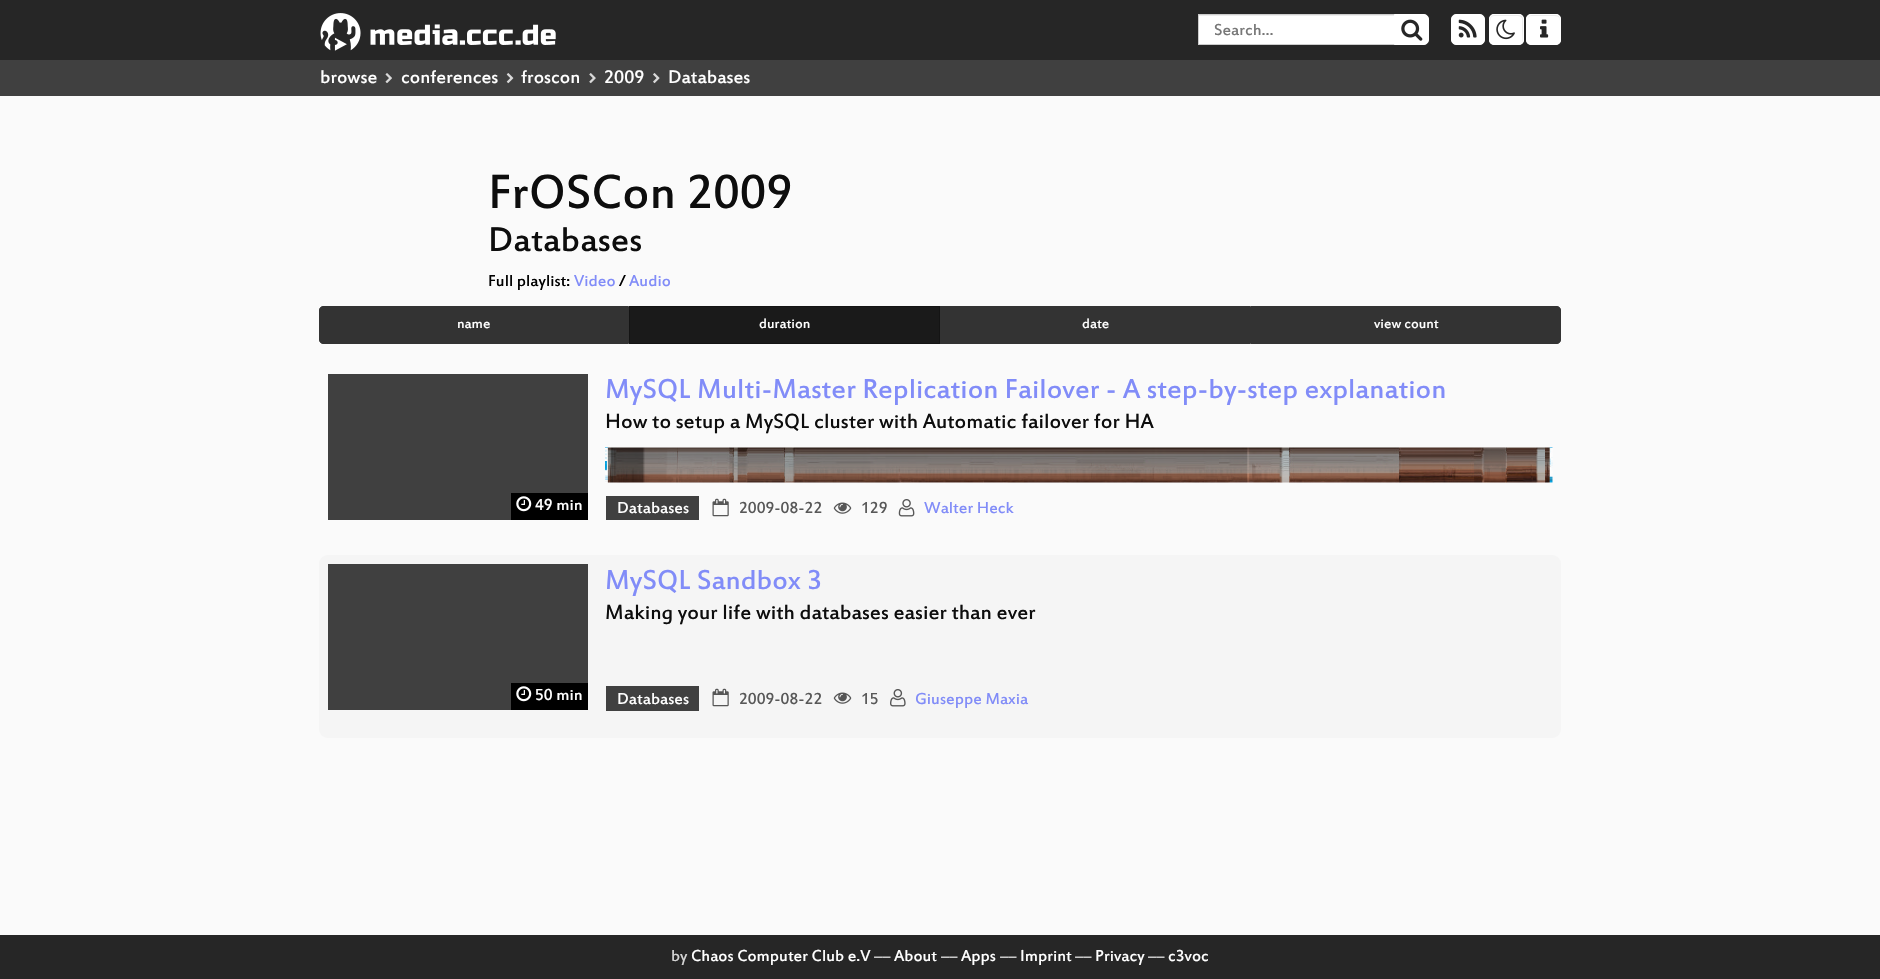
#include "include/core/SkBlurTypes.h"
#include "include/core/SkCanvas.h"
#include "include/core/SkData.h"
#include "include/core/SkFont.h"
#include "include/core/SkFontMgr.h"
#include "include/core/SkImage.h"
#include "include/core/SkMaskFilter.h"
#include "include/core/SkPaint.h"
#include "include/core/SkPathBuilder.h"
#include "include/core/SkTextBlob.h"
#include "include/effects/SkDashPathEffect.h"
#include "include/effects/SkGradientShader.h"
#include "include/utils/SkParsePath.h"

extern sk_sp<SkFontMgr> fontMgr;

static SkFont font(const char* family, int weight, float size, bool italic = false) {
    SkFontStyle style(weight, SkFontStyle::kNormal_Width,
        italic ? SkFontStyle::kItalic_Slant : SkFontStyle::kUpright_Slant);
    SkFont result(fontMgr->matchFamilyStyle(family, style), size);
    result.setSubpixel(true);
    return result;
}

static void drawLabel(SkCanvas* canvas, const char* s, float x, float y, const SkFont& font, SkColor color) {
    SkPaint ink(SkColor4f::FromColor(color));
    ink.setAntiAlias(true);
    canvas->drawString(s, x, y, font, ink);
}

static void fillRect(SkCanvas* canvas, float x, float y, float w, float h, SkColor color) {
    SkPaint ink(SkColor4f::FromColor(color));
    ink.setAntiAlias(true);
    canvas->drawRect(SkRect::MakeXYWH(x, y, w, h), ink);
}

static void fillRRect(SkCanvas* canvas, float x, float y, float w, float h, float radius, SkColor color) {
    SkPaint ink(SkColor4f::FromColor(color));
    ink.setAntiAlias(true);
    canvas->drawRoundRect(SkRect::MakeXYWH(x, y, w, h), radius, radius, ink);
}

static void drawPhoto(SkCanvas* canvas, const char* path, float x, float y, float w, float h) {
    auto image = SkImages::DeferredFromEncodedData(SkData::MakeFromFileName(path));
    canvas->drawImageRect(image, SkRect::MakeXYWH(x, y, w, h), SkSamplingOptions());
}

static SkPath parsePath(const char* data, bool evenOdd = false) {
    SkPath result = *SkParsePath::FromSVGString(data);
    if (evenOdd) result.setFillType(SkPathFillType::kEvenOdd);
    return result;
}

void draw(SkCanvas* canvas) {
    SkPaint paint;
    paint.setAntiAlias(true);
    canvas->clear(0xFFFAFAFA);
    fillRect(canvas, 0, 0, 1880, 60, 0xFF262626);
    drawPhoto(canvas, "assets/img1.png", 320, 13, 236, 38);
    fillRect(canvas, 1199, 16, 195, 28, 0xFFFFFFFF);
    fillRect(canvas, 1199, 15, 195, 1, 0xFFECECEC);
    paint.setStroke(true);
    paint.setStrokeWidth(1);
    paint.setColor(0xFFCCCCCC);
    canvas->drawRect(SkRect::MakeXYWH(1198.5f, 14.5f, 196, 30), paint);
    SkFont font1 = font("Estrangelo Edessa", 400, 17.5f);
    drawLabel(canvas, "Search…", 1214, 35, font1, 0xFF777777);
    paint.setStroke(false);
    paint.setColor(0xFFFFFFFF);
    canvas->drawPath(parsePath("M1394.5 14.5H1424C1426.5 14.5 1428.5 16.5 1428.5 19V40C1428.5 42.5 1426.5 44.5 1424 44.5H1394.5Z"), paint);
    paint.setStroke(true);
    canvas->drawPath(parsePath("M1394.5 14.5H1424C1426.5 14.5 1428.5 16.5 1428.5 19V40C1428.5 42.5 1426.5 44.5 1424 44.5H1394.5Z"), paint);
    drawPhoto(canvas, "assets/img2.png", 1401, 19, 22, 22);
    paint.setStroke(false);
    canvas->drawRoundRect(SkRect::MakeXYWH(1451.5f, 14.5f, 33, 30), 4.5f, 4.5f, paint);
    paint.setStroke(true);
    canvas->drawRoundRect(SkRect::MakeXYWH(1451.5f, 14.5f, 33, 30), 4.5f, 4.5f, paint);
    drawPhoto(canvas, "assets/img3.png", 1458, 19, 19, 19);
    fillRRect(canvas, 1489, 14, 35, 31, 5, 0xFFFFFFFF);
    paint.setStroke(false);
    paint.setColor(0xFFECECEC);
    canvas->drawPath(parsePath("M1494 16H1515C1522.5 16 1522.5 17.5 1522 23V27C1522 36 1523 40.5 1522 42.5C1522.5 42 1523 41 1523 40V19C1523 17 1521 15 1519 15H1494C1492 15 1490 17 1490 19V24C1490 21 1490 16 1494 16ZM1490 41V38Z", true), paint);
    paint.setStroke(true);
    paint.setColor(0xFFFFFFFF);
    canvas->drawRoundRect(SkRect::MakeXYWH(1489.5f, 14.5f, 34, 30), 4.5f, 4.5f, paint);
    drawPhoto(canvas, "assets/img4.png", 1496, 19, 19, 21);
    fillRRect(canvas, 1526, 14, 35, 31, 5, 0xFFFFFFFF);
    paint.setStroke(false);
    paint.setColor(0xFFECECEC);
    canvas->drawPath(parsePath("M1531 16H1552C1558.5 16 1560 17 1560 21V19C1560 17 1558 15 1556 15H1532C1530 15 1528 16.5 1528 19C1528.5 17 1529 16 1531 16ZM1528 40.5V38Z", true), paint);
    paint.setStroke(true);
    paint.setColor(0xFFFFFFFF);
    canvas->drawRoundRect(SkRect::MakeXYWH(1526.5f, 14.5f, 34, 30), 4.5f, 4.5f, paint);
    drawPhoto(canvas, "assets/img5.png", 1540, 19, 9, 19);
    fillRect(canvas, 0, 60, 1880, 36, 0xFF404040);
    SkFont font2 = font("Estrangelo Edessa", 400, 20);
    drawLabel(canvas, "browse", 320, 83, font2, 0xFFFFFFFF);
    drawPhoto(canvas, "assets/img6.png", 385, 73, 7, 10);
    drawLabel(canvas, "conferences", 401, 83, font2, 0xFFFFFFFF);
    drawPhoto(canvas, "assets/img7.png", 506, 73, 8, 11);
    drawLabel(canvas, "froscon", 521, 83, font2, 0xFFFFFFFF);
    drawPhoto(canvas, "assets/img8.png", 589, 73, 7, 11);
    drawLabel(canvas, "2009", 604, 83, font2, 0xFFFFFFFF);
    drawPhoto(canvas, "assets/img9.png", 653, 73, 7, 11);
    drawLabel(canvas, "Databases", 668, 83, font2, 0xFFFFFFFF);
    SkFont font3 = font("Estrangelo Edessa", 400, 52.5f);
    drawLabel(canvas, "FrOSCon 2009", 488, 208, font3, 0xFF0D0D0D);
    SkFont font4 = font("Estrangelo Edessa", 400, 37.5f);
    drawLabel(canvas, "Databases", 488, 251, font4, 0xFF0D0D0D);
    drawLabel(canvas, "Full playlist:", 488, 286, font1, 0xFF000000);
    drawLabel(canvas, "Video", 574, 286, font1, 0xFF818CF8);
    drawLabel(canvas, "/", 619, 286, font1, 0xFF000000);
    drawLabel(canvas, "Audio", 629, 286, font1, 0xFF818CF8);
    paint.setStroke(false);
    paint.setColor(0xFF333333);
    canvas->drawPath(parsePath("M323 306.5H628.5V343.5H323C321 343.5 319.5 342 319.5 340V310C319.5 308 321 306.5 323 306.5Z"), paint);
    paint.setStroke(true);
    canvas->drawPath(parsePath("M323 306.5H628.5V343.5H323C321 343.5 319.5 342 319.5 340V310C319.5 308 321 306.5 323 306.5Z"), paint);
    SkFont font5 = font("Estrangelo Edessa", 400, 15);
    drawLabel(canvas, "name", 457, 328, font5, 0xFFFFFFFF);
    paint.setStroke(false);
    paint.setColor(0xFF1A1A1A);
    canvas->drawRect(SkRect::MakeXYWH(629.5f, 306.5f, 310, 37), paint);
    paint.setStroke(true);
    paint.setColor(0xFF141414);
    canvas->drawRect(SkRect::MakeXYWH(629.5f, 306.5f, 310, 37), paint);
    drawLabel(canvas, "duration", 759, 328, font5, 0xFFFFFFFF);
    fillRect(canvas, 940, 306, 310, 38, 0xFF333333);
    drawLabel(canvas, "date", 1082, 328, font5, 0xFFFFFFFF);
    paint.setStroke(false);
    paint.setColor(0xFF333333);
    canvas->drawPath(parsePath("M1250.5 306.5H1557C1559 306.5 1560.5 308 1560.5 310V340C1560.5 342 1559 343.5 1557 343.5H1250.5Z"), paint);
    paint.setStroke(true);
    canvas->drawPath(parsePath("M1250.5 306.5H1557C1559 306.5 1560.5 308 1560.5 310V340C1560.5 342 1559 343.5 1557 343.5H1250.5Z"), paint);
    drawLabel(canvas, "view count", 1374, 328, font5, 0xFFFFFFFF);
    fillRect(canvas, 328, 374, 260, 146, 0xFF404040);
    fillRect(canvas, 511, 493, 77, 27, 0xFF000000);
    drawPhoto(canvas, "assets/img10.png", 516, 496, 16, 16);
    drawLabel(canvas, "49 min", 535, 510, font1, 0xFFFFFFFF);
    SkFont font6 = font("Estrangelo Edessa", 400, 30);
    drawLabel(canvas, "MySQL Multi-Master Replication Failover - A step-by-step explanation", 605, 398, font6, 0xFF818CF8);
    SkFont font7 = font("Estrangelo Edessa", 400, 22.5f);
    drawLabel(canvas, "How to setup a MySQL cluster with Automatic failover for HA", 605, 428, font7, 0xFF0D0D0D);
    drawPhoto(canvas, "assets/img11.png", 605, 447, 948, 36);
    fillRect(canvas, 606, 496, 93, 24, 0xFF404040);
    drawLabel(canvas, "Databases", 617, 513, font1, 0xFFFFFFFF);
    drawPhoto(canvas, "assets/img12.png", 712, 498, 17, 19);
    drawLabel(canvas, "2009-08-22", 739, 513, font1, 0xFF585858);
    drawPhoto(canvas, "assets/img13.png", 833, 502, 19, 12);
    drawLabel(canvas, "129", 861, 513, font1, 0xFF585858);
    drawPhoto(canvas, "assets/img14.png", 898, 499, 17, 18);
    drawLabel(canvas, "Walter Heck", 924, 513, font1, 0xFF818CF8);
    fillRRect(canvas, 319, 555, 1242, 183, 9, 0xFFF5F5F5);
    fillRect(canvas, 328, 564, 260, 146, 0xFF404040);
    fillRect(canvas, 511, 683, 77, 27, 0xFF000000);
    drawPhoto(canvas, "assets/img10.png", 516, 686, 16, 16);
    drawLabel(canvas, "50 min", 535, 700, font1, 0xFFFFFFFF);
    drawLabel(canvas, "MySQL Sandbox 3", 605, 589, font6, 0xFF818CF8);
    drawLabel(canvas, "Making your life with databases easier than ever", 605, 619, font7, 0xFF0D0D0D);
    fillRect(canvas, 606, 686, 93, 25, 0xFF404040);
    drawLabel(canvas, "Databases", 617, 704, font1, 0xFFFFFFFF);
    drawPhoto(canvas, "assets/img15.png", 712, 688, 17, 19);
    drawLabel(canvas, "2009-08-22", 739, 704, font1, 0xFF585858);
    drawPhoto(canvas, "assets/img16.png", 833, 692, 19, 12);
    drawLabel(canvas, "15", 861, 704, font1, 0xFF585858);
    drawPhoto(canvas, "assets/img17.png", 890, 689, 16, 18);
    drawLabel(canvas, "Giuseppe Maxia", 915, 704, font1, 0xFF818CF8);
    fillRect(canvas, 0, 935, 1880, 44, 0xFF262626);
    drawLabel(canvas, "by", 671, 961, font1, 0xFFD4D4D4);
    drawLabel(canvas, "Chaos Computer Club e.V", 691, 961, font1, 0xFFFFFFFF);
    drawLabel(canvas, "––", 874, 961, font1, 0xFFD4D4D4);
    drawLabel(canvas, "About", 894, 961, font1, 0xFFFFFFFF);
    drawLabel(canvas, "––", 941, 961, font1, 0xFFD4D4D4);
    drawLabel(canvas, "Apps", 961, 961, font1, 0xFFFFFFFF);
    drawLabel(canvas, "––", 1000, 961, font1, 0xFFD4D4D4);
    drawLabel(canvas, "Imprint", 1020, 961, font1, 0xFFFFFFFF);
    drawLabel(canvas, "––", 1075, 961, font1, 0xFFD4D4D4);
    drawLabel(canvas, "Privacy", 1095, 961, font1, 0xFFFFFFFF);
    drawLabel(canvas, "––", 1148, 961, font1, 0xFFD4D4D4);
    drawLabel(canvas, "c3voc", 1168, 961, font1, 0xFFFFFFFF);
}
